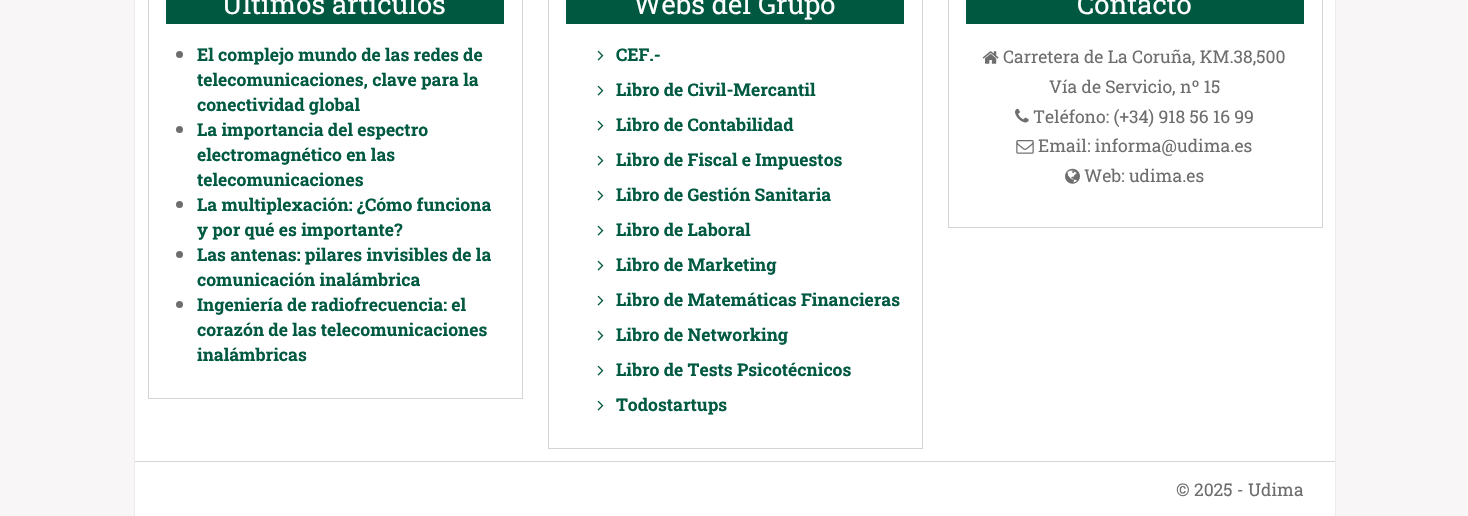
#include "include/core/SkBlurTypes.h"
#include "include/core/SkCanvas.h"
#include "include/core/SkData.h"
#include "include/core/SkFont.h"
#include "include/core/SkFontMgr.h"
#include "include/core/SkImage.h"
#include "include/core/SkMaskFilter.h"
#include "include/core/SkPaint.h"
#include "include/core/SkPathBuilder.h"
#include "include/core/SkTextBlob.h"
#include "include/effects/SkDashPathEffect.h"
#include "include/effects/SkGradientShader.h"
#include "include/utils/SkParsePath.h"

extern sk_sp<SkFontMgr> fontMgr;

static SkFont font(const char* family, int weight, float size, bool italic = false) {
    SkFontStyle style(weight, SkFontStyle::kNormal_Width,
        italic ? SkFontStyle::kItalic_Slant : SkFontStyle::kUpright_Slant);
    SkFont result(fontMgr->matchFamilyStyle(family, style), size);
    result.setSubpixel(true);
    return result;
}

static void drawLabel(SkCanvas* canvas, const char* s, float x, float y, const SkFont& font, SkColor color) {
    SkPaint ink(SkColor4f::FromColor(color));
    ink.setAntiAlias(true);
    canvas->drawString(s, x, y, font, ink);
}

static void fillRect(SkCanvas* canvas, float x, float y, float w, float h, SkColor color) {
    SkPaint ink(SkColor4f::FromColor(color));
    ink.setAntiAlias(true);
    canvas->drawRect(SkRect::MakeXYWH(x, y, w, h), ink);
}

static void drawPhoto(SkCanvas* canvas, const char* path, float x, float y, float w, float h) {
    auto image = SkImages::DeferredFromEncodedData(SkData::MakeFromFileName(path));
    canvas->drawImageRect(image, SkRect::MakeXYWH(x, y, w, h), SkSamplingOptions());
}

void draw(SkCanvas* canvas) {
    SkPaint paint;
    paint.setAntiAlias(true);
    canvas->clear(0xFFF8F6F6);
    fillRect(canvas, 135, 0, 1200, 461, 0xFFFFFFFF);
    fillRect(canvas, 1335, 0, 1, 461, 0xFFEDEBEB);
    fillRect(canvas, 134, 0, 1, 461, 0xFFEDEBEB);
    paint.setStroke(true);
    paint.setStrokeWidth(1);
    paint.setColor(0xFFD5D5D5);
    canvas->drawRect(SkRect::MakeXYWH(148.5f, -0.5f, 374, 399), paint);
    fillRect(canvas, 166, 0, 338, 24, 0xFF005840);
    SkFont font1 = font("Roboto Slab", 400, 27.5f);
    drawLabel(canvas, "Últimos artículos", 222, 14, font1, 0xFFFFFFFF);
    paint.setStroke(false);
    paint.setColor(0xFF6E6E6E);
    canvas->drawCircle(179.5f, 54.5f, 3.5f, paint);
    SkFont font2 = font("Roboto Slab", 700, 17.5f);
    drawLabel(canvas, "El complejo mundo de las redes de", 197, 61, font2, 0xFF005941);
    drawLabel(canvas, "telecomunicaciones, clave para la", 197, 86, font2, 0xFF005941);
    drawLabel(canvas, "conectividad global", 197, 111, font2, 0xFF005941);
    canvas->drawCircle(179.5f, 129.5f, 3.5f, paint);
    drawLabel(canvas, "La importancia del espectro", 197, 136, font2, 0xFF005941);
    drawLabel(canvas, "electromagnético en las", 197, 161, font2, 0xFF005941);
    drawLabel(canvas, "telecomunicaciones", 197, 186, font2, 0xFF005941);
    canvas->drawCircle(179.5f, 204.5f, 3.5f, paint);
    drawLabel(canvas, "La multiplexación: ¿Cómo funciona", 197, 211, font2, 0xFF005941);
    drawLabel(canvas, "y por qué es importante?", 197, 236, font2, 0xFF005941);
    canvas->drawCircle(179.5f, 254.5f, 3.5f, paint);
    drawLabel(canvas, "Las antenas: pilares invisibles de la", 197, 261, font2, 0xFF005941);
    drawLabel(canvas, "comunicación inalámbrica", 197, 286, font2, 0xFF005941);
    canvas->drawCircle(179.5f, 304.5f, 3.5f, paint);
    drawLabel(canvas, "Ingeniería de radiofrecuencia: el", 197, 311, font2, 0xFF005941);
    drawLabel(canvas, "corazón de las telecomunicaciones", 197, 336, font2, 0xFF005941);
    drawLabel(canvas, "inalámbricas", 197, 361, font2, 0xFF005941);
    paint.setStroke(true);
    paint.setColor(0xFFD5D5D5);
    canvas->drawRect(SkRect::MakeXYWH(548.5f, -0.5f, 374, 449), paint);
    fillRect(canvas, 566, 0, 338, 24, 0xFF005840);
    drawLabel(canvas, "Webs del Grupo", 633, 14, font1, 0xFFFFFFFF);
    drawPhoto(canvas, "assets/img1.png", 597, 50, 7, 11);
    drawLabel(canvas, "CEF.-", 616, 61, font2, 0xFF005941);
    drawPhoto(canvas, "assets/img1.png", 597, 85, 7, 11);
    drawLabel(canvas, "Libro de Civil-Mercantil", 616, 96, font2, 0xFF005941);
    drawPhoto(canvas, "assets/img1.png", 597, 120, 7, 11);
    drawLabel(canvas, "Libro de Contabilidad", 616, 131, font2, 0xFF005941);
    drawPhoto(canvas, "assets/img1.png", 597, 155, 7, 11);
    drawLabel(canvas, "Libro de Fiscal e Impuestos", 616, 166, font2, 0xFF005941);
    drawPhoto(canvas, "assets/img1.png", 597, 190, 7, 11);
    drawLabel(canvas, "Libro de Gestión Sanitaria", 616, 201, font2, 0xFF005941);
    drawPhoto(canvas, "assets/img1.png", 597, 225, 7, 11);
    drawLabel(canvas, "Libro de Laboral", 616, 236, font2, 0xFF005941);
    drawPhoto(canvas, "assets/img1.png", 597, 260, 7, 11);
    drawLabel(canvas, "Libro de Marketing", 616, 271, font2, 0xFF005941);
    drawPhoto(canvas, "assets/img1.png", 597, 295, 7, 11);
    drawLabel(canvas, "Libro de Matemáticas Financieras", 616, 306, font2, 0xFF005941);
    drawPhoto(canvas, "assets/img1.png", 597, 330, 7, 11);
    drawLabel(canvas, "Libro de Networking", 616, 341, font2, 0xFF005941);
    drawPhoto(canvas, "assets/img1.png", 597, 365, 7, 11);
    drawLabel(canvas, "Libro de Tests Psicotécnicos", 616, 376, font2, 0xFF005941);
    drawPhoto(canvas, "assets/img1.png", 597, 400, 7, 11);
    drawLabel(canvas, "Todostartups", 616, 411, font2, 0xFF005941);
    canvas->drawRect(SkRect::MakeXYWH(948.5f, -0.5f, 374, 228), paint);
    fillRect(canvas, 966, 0, 338, 24, 0xFF005840);
    drawLabel(canvas, "Contacto", 1077, 14, font1, 0xFFFFFFFF);
    drawPhoto(canvas, "assets/img2.png", 982, 51, 17, 13);
    SkFont font3 = font("Roboto Slab", 400, 17.5f);
    drawLabel(canvas, "Carretera de La Coruña, KM.38,500", 1003, 63, font3, 0xFF6E6E6E);
    drawLabel(canvas, "Vía de Servicio, nº 15", 1049, 93, font3, 0xFF6E6E6E);
    drawPhoto(canvas, "assets/img3.png", 1015, 108, 14, 15);
    drawLabel(canvas, "Teléfono: (+34) 918 56 16 99", 1033, 123, font3, 0xFF6E6E6E);
    drawPhoto(canvas, "assets/img4.png", 1016, 140, 18, 14);
    drawLabel(canvas, "Email: informa@udima.es", 1038, 152, font3, 0xFF6E6E6E);
    drawPhoto(canvas, "assets/img5.png", 1065, 168, 15, 16);
    drawLabel(canvas, "Web: udima.es", 1084, 182, font3, 0xFF6E6E6E);
    fillRect(canvas, 135, 462, 1200, 54, 0xFFFFFFFF);
    fillRect(canvas, 134, 461, 1202, 1, 0xFFD5D5D5);
    fillRect(canvas, 1335, 461, 1, 55, 0xFFEDEBEB);
    fillRect(canvas, 134, 461, 1, 55, 0xFFEDEBEB);
    drawLabel(canvas, "© 2025 - Udima", 1176, 496, font3, 0xFF6E6E6E);
}
